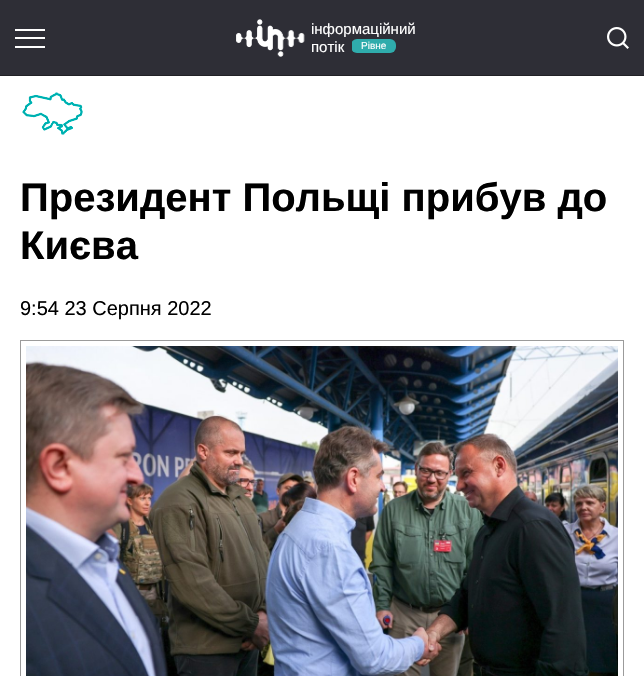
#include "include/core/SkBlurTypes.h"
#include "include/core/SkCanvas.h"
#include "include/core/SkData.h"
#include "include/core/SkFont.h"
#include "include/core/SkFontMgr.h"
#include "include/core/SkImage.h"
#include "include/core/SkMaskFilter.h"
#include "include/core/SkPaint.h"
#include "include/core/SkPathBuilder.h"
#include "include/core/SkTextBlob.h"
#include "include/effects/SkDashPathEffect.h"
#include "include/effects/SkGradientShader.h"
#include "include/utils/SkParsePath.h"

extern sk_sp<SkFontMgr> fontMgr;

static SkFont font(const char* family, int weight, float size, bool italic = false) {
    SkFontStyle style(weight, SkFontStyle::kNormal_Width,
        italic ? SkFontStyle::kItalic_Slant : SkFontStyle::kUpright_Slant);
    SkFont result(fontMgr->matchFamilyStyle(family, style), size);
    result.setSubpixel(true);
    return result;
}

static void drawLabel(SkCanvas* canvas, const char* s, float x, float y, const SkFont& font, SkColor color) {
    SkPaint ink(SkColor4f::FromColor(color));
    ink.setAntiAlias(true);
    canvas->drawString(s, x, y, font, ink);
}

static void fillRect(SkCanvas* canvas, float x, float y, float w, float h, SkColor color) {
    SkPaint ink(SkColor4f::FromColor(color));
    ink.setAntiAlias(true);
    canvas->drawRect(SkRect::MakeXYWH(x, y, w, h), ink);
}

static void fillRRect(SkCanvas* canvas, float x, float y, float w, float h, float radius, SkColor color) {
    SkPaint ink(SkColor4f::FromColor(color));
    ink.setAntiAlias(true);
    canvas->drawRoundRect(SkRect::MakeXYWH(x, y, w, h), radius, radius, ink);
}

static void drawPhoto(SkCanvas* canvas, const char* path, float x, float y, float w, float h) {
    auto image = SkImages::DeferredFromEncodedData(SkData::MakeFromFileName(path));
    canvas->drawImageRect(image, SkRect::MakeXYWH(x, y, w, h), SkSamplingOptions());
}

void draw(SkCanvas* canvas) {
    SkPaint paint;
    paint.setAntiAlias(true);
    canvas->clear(0xFFFFFFFF);
    fillRect(canvas, 0, 0, 644, 75, 0xFF2E2E36);
    fillRect(canvas, 15, 29, 30, 2, 0xFFFFFFFF);
    fillRect(canvas, 15, 37, 30, 2, 0xFFFFFFFF);
    fillRect(canvas, 15, 46, 30, 2, 0xFFFFFFFF);
    drawPhoto(canvas, "assets/img1.png", 236, 19, 69, 38);
    SkFont font1 = font("Liberation Sans", 400, 15);
    drawLabel(canvas, "інформаційний", 311, 34, font1, 0xFFFFFFFF);
    drawLabel(canvas, "потік", 311, 52, font1, 0xFFFFFFFF);
    canvas->save();
    canvas->clipRect(SkRect::MakeXYWH(352, 39, 44, 14));
    fillRRect(canvas, 351, 39, 45, 14, 6, 0xFF2FACAC);
    canvas->restore();
    SkFont font2 = font("Liberation Sans", 400, 10);
    drawLabel(canvas, "Рівне", 361, 49, font2, 0xFFFFFFFF);
    drawPhoto(canvas, "assets/img2.png", 607, 27, 22, 22);
    fillRect(canvas, 0, 75, 644, 1, 0xFF212126);
    drawPhoto(canvas, "assets/img3.png", 22, 92, 61, 43);
    SkFont font3 = font("Liberation Sans", 700, 40);
    drawLabel(canvas, "Президент Польщі прибув до", 20, 211, font3, 0xFF000000);
    drawLabel(canvas, "Києва", 20, 259, font3, 0xFF000000);
    SkFont font4 = font("Liberation Sans", 400, 20);
    drawLabel(canvas, "9:54 23 Серпня 2022", 20, 315, font4, 0xFF000000);
    paint.setStroke(true);
    paint.setStrokeWidth(1);
    paint.setColor(0xFF9B9B9B);
    canvas->drawRect(SkRect::MakeXYWH(20.5f, 340.5f, 603, 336), paint);
    drawPhoto(canvas, "assets/img4.png", 26, 346, 592, 330);
}
